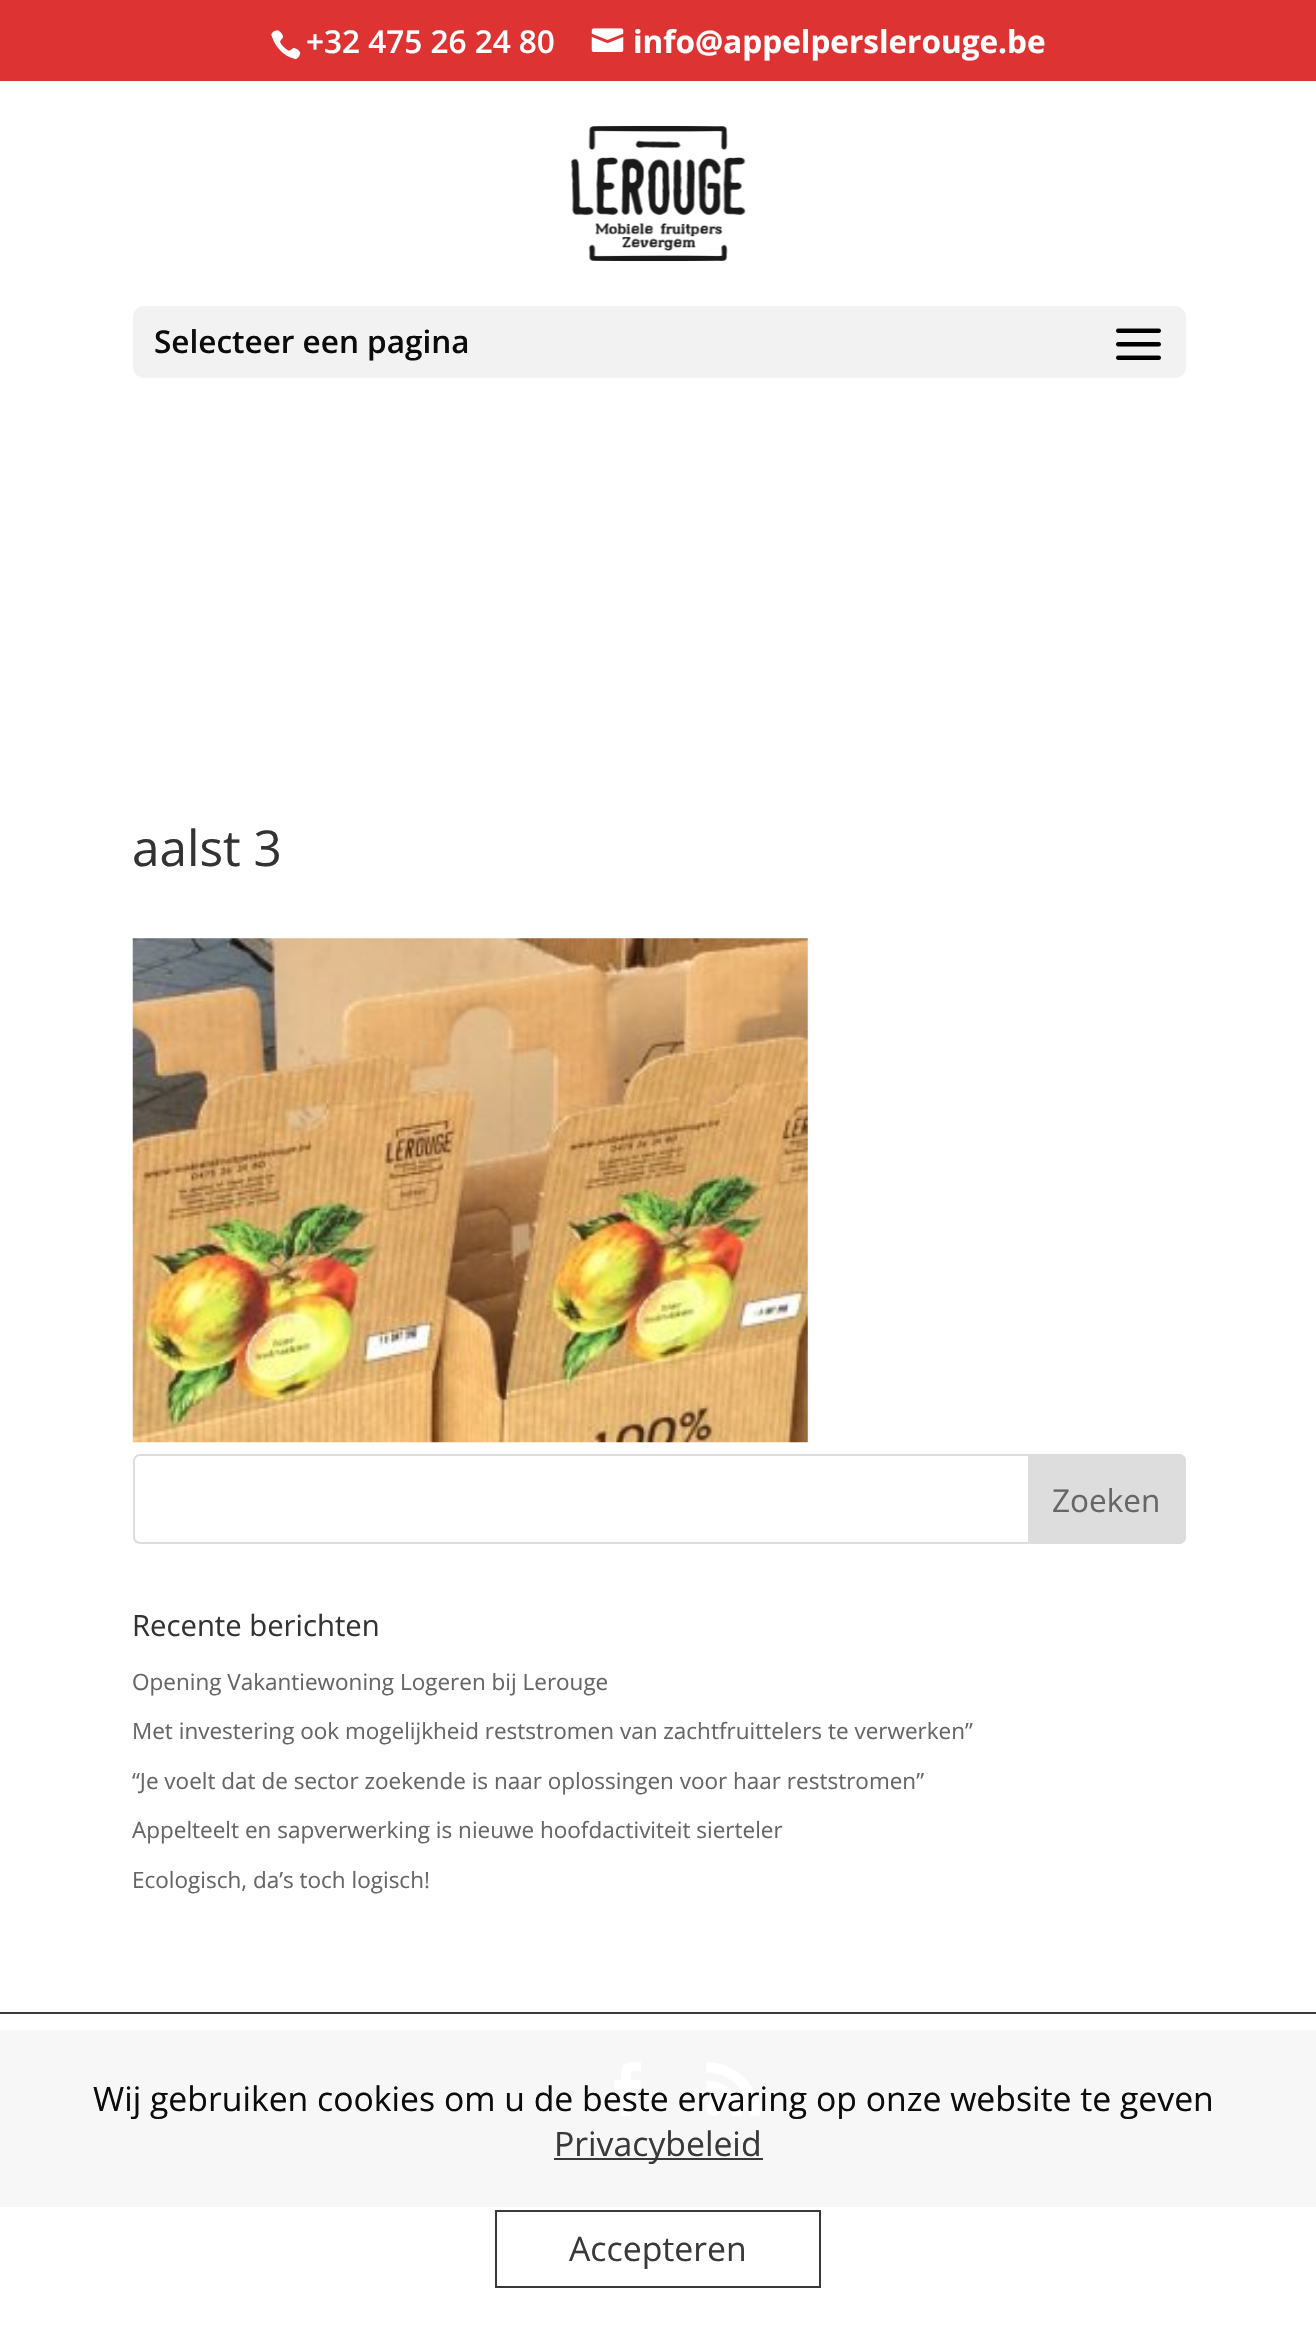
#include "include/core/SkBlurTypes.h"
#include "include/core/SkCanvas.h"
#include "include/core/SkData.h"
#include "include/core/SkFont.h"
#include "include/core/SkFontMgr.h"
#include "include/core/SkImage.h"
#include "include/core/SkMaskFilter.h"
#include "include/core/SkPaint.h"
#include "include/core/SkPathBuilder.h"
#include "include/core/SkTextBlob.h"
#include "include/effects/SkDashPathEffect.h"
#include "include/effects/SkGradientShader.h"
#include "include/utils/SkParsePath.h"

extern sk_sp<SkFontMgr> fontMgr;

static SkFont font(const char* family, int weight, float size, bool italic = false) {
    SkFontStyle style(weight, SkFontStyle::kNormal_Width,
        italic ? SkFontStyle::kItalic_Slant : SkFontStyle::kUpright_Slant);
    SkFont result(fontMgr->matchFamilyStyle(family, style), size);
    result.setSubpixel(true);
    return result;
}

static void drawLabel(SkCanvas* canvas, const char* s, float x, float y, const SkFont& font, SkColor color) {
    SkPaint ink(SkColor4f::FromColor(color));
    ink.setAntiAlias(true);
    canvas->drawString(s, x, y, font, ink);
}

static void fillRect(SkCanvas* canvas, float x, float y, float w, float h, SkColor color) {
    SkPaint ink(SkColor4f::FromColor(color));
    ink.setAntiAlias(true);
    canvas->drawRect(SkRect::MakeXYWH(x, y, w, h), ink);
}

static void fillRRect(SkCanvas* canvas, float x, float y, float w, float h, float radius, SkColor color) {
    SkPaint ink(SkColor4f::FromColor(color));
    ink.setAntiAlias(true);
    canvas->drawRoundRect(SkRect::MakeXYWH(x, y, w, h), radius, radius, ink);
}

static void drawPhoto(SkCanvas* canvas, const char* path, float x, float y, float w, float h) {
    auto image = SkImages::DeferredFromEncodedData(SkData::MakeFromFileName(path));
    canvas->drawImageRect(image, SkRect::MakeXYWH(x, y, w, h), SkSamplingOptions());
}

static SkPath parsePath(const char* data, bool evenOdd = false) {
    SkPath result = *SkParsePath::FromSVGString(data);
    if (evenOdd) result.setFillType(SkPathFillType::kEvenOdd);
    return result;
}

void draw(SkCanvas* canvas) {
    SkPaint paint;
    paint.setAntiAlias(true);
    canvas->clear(0xFFFFFFFF);
    fillRect(canvas, 0, 0, 1316, 81, 0xFFDD3333);
    drawPhoto(canvas, "assets/img1.png", 271, 30, 30, 30);
    SkFont font1 = font("Open Sans", 600, 31.5f);
    drawLabel(canvas, "+32 475 26 24 80", 306, 53, font1, 0xFFFFFFFF);
    drawPhoto(canvas, "assets/img2.png", 591, 28, 33, 24);
    SkFont font2 = font("Open Sans", 700, 31.5f);
    drawLabel(canvas, "info@appelperslerouge.be", 633, 53, font2, 0xFFFFFFFF);
    drawPhoto(canvas, "assets/img3.png", 571, 126, 175, 135);
    fillRRect(canvas, 133, 306, 1053, 72, 11, 0xFFF2F2F2);
    drawLabel(canvas, "Selecteer een pagina", 154, 353, font1, 0xFF0C0C0C);
    drawPhoto(canvas, "assets/img4.png", 1116, 328, 45, 32);
    SkFont font3 = font("Open Sans", 400, 49.5f);
    drawLabel(canvas, "aalst 3", 132, 866, font3, 0xFF333333);
    drawPhoto(canvas, "assets/img5.png", 132, 938, 676, 505);
    paint.setStroke(true);
    paint.setStrokeWidth(2);
    paint.setColor(0xFFDDDDDD);
    canvas->drawRoundRect(SkRect::MakeXYWH(134, 1455, 1051, 88), 6, 6, paint);
    paint.setStroke(false);
    canvas->drawPath(parsePath("M1029 1455H1179C1182.5 1455 1185 1457.5 1185 1461V1537C1185 1540.5 1182.5 1543 1179 1543H1029Z"), paint);
    paint.setStroke(true);
    canvas->drawPath(parsePath("M1029 1455H1179C1182.5 1455 1185 1457.5 1185 1461V1537C1185 1540.5 1182.5 1543 1179 1543H1029Z"), paint);
    SkFont font4 = font("Open Sans", 400, 31.5f);
    drawLabel(canvas, "Zoeken", 1052, 1512, font4, 0xFF666666);
    SkFont font5 = font("Open Sans", 400, 29.25f);
    drawLabel(canvas, "Recente berichten", 132, 1636, font5, 0xFF333333);
    SkFont font6 = font("Open Sans", 400, 22.5f);
    drawLabel(canvas, "Opening Vakantiewoning Logeren bij Lerouge", 132, 1690, font6, 0xFF666666);
    drawLabel(canvas, "Met investering ook mogelijkheid reststromen van zachtfruittelers te verwerken”", 132, 1739, font6, 0xFF666666);
    drawLabel(canvas, "“Je voelt dat de sector zoekende is naar oplossingen voor haar reststromen”", 132, 1789, font6, 0xFF666666);
    drawLabel(canvas, "Appelteelt en sapverwerking is nieuwe hoofdactiviteit sierteler", 132, 1838, font6, 0xFF666666);
    drawLabel(canvas, "Ecologisch, da’s toch logisch!", 132, 1888, font6, 0xFF666666);
    fillRect(canvas, 0, 2030, 1316, 177, 0xFFF7F7F7);
    paint.setStroke(false);
    paint.setColor(0xFFFFFFFF);
    canvas->drawPath(parsePath("M621 2116H631V2089H640L641 2080H631C631 2070 631 2071 641 2071V2062C624 2062 621 2061 621 2080H614V2089H621Z"), paint);
    drawPhoto(canvas, "assets/img6.png", 706, 2062, 55, 55);
    fillRect(canvas, 0, 2012, 1316, 2, 0xFF393939);
    SkFont font7 = font("Open Sans", 400, 33.75f);
    drawLabel(canvas, "Wij gebruiken cookies om u de beste ervaring op onze website te geven", 93, 2111, font7, 0xFF0C0C0C);
    fillRect(canvas, 554, 2158, 209, 2, 0xF7333333);
    drawLabel(canvas, "Privacybeleid", 554, 2156, font7, 0xFF393939);
    paint.setStroke(true);
    paint.setColor(0xFF393939);
    canvas->drawRect(SkRect::MakeXYWH(496, 2211, 324, 76), paint);
    drawLabel(canvas, "Accepteren", 569, 2261, font7, 0xFF393939);
}
